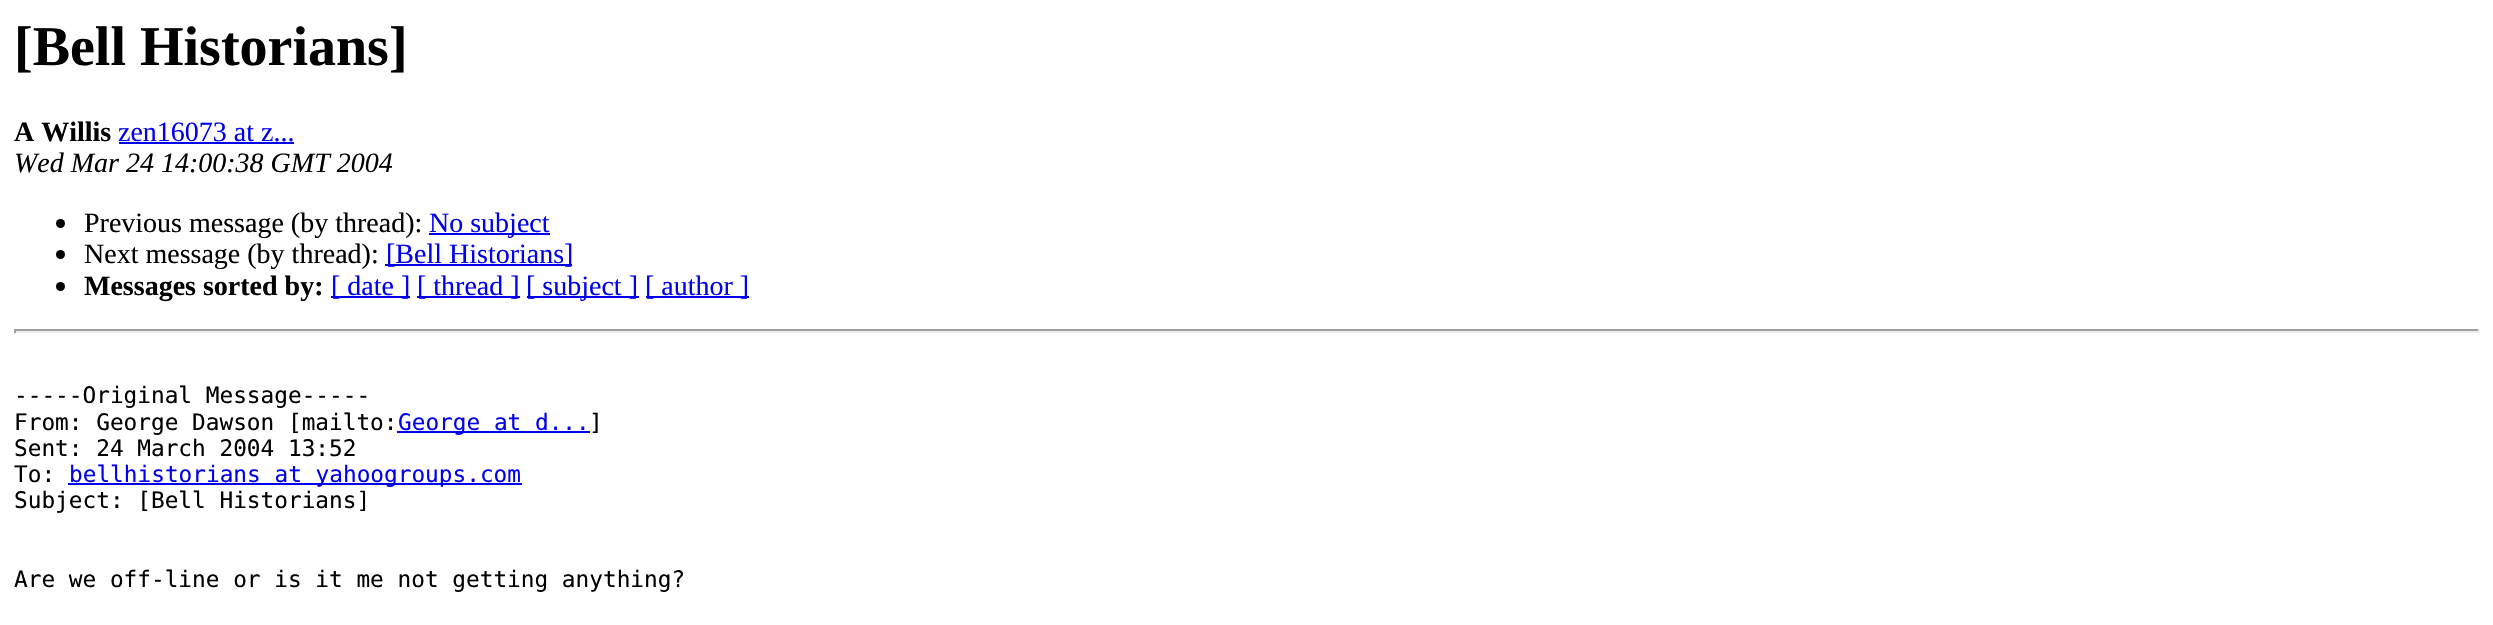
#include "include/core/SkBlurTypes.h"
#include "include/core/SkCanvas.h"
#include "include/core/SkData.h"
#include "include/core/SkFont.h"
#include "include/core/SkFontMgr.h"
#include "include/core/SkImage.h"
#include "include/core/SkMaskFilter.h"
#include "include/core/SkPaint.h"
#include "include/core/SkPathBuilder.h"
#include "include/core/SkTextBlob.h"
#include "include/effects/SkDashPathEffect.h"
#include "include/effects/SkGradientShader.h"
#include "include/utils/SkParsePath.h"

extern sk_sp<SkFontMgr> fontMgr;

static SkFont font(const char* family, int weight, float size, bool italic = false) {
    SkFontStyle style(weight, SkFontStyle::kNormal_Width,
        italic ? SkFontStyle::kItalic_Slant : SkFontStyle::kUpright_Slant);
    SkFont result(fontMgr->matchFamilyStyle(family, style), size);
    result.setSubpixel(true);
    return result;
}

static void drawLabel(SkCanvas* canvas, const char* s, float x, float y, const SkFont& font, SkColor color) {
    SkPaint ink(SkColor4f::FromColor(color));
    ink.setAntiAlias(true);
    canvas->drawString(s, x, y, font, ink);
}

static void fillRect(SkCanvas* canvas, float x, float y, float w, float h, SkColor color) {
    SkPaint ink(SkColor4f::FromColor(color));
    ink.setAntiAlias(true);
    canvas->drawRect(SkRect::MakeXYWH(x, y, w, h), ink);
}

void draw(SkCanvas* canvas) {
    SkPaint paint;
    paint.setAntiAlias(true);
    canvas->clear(0xFFFFFFFF);
    SkFont font1 = font("Liberation Serif", 700, 56);
    drawLabel(canvas, "[Bell Historians]", 14, 65, font1, 0xFF000000);
    SkFont font2 = font("Liberation Serif", 700, 28);
    drawLabel(canvas, "A Willis", 14, 141, font2, 0xFF000000);
    SkFont font3 = font("Liberation Serif", 400, 28);
    drawLabel(canvas, "zen16073 at z...", 118, 141, font3, 0xFF0000EE);
    fillRect(canvas, 119, 142, 175, 2, 0xFF0000EE);
    SkFont font4 = font("Liberation Serif", 400, 28, true);
    drawLabel(canvas, "Wed Mar 24 14:00:38 GMT 2004", 14, 172, font4, 0xFF000000);
    paint.setColor(0xFF000000);
    canvas->drawCircle(60.5f, 223.5f, 4.5f, paint);
    drawLabel(canvas, "Previous message (by thread):", 84, 232, font3, 0xFF000000);
    fillRect(canvas, 429, 233, 121, 2, 0xFF0000EE);
    drawLabel(canvas, "No subject", 429, 232, font3, 0xFF0000EE);
    canvas->drawCircle(60.5f, 254.5f, 4.5f, paint);
    drawLabel(canvas, "Next message (by thread):", 84, 263, font3, 0xFF000000);
    fillRect(canvas, 385, 264, 187, 2, 0xFF0000EE);
    drawLabel(canvas, "[Bell Historians]", 386, 263, font3, 0xFF0000EE);
    canvas->drawCircle(60.5f, 286.5f, 4.5f, paint);
    drawLabel(canvas, "Messages sorted by:", 84, 295, font2, 0xFF000000);
    fillRect(canvas, 331, 296, 79, 2, 0xFF0000EE);
    drawLabel(canvas, "[ date ]", 331, 295, font3, 0xFF0000EE);
    fillRect(canvas, 417, 296, 103, 2, 0xFF0000EE);
    drawLabel(canvas, "[ thread ]", 417, 295, font3, 0xFF0000EE);
    fillRect(canvas, 527, 296, 112, 2, 0xFF0000EE);
    drawLabel(canvas, "[ subject ]", 526, 295, font3, 0xFF0000EE);
    fillRect(canvas, 646, 296, 103, 2, 0xFF0000EE);
    drawLabel(canvas, "[ author ]", 645, 295, font3, 0xFF0000EE);
    fillRect(canvas, 14, 329, 2466, 2, 0xFF9F9F9F);
    fillRect(canvas, 2478, 329, 2, 4, 0xFFEEEEEE);
    fillRect(canvas, 14, 331, 2466, 2, 0xFFEEEEEE);
    fillRect(canvas, 14, 329, 2, 4, 0xFF9F9F9F);
    SkFont font5 = font("DejaVu Sans Mono", 400, 22.75f);
    drawLabel(canvas, "-----Original Message-----", 14, 403, font5, 0xFF000000);
    drawLabel(canvas, "From: George Dawson [mailto:", 14, 430, font5, 0xFF000000);
    fillRect(canvas, 397, 431, 193, 2, 0xFF0000EE);
    drawLabel(canvas, "George at d...", 398, 430, font5, 0xFF0000EE);
    drawLabel(canvas, "]", 589, 430, font5, 0xFF000000);
    drawLabel(canvas, "Sent: 24 March 2004 13:52", 14, 456, font5, 0xFF000000);
    drawLabel(canvas, "To:", 14, 482, font5, 0xFF000000);
    fillRect(canvas, 68, 483, 454, 2, 0xFF0000EE);
    drawLabel(canvas, "bellhistorians at yahoogroups.com", 69, 482, font5, 0xFF0000EE);
    drawLabel(canvas, "Subject: [Bell Historians]", 14, 508, font5, 0xFF000000);
    drawLabel(canvas, "Are we off-line or is it me not getting anything?", 14, 587, font5, 0xFF000000);
}
